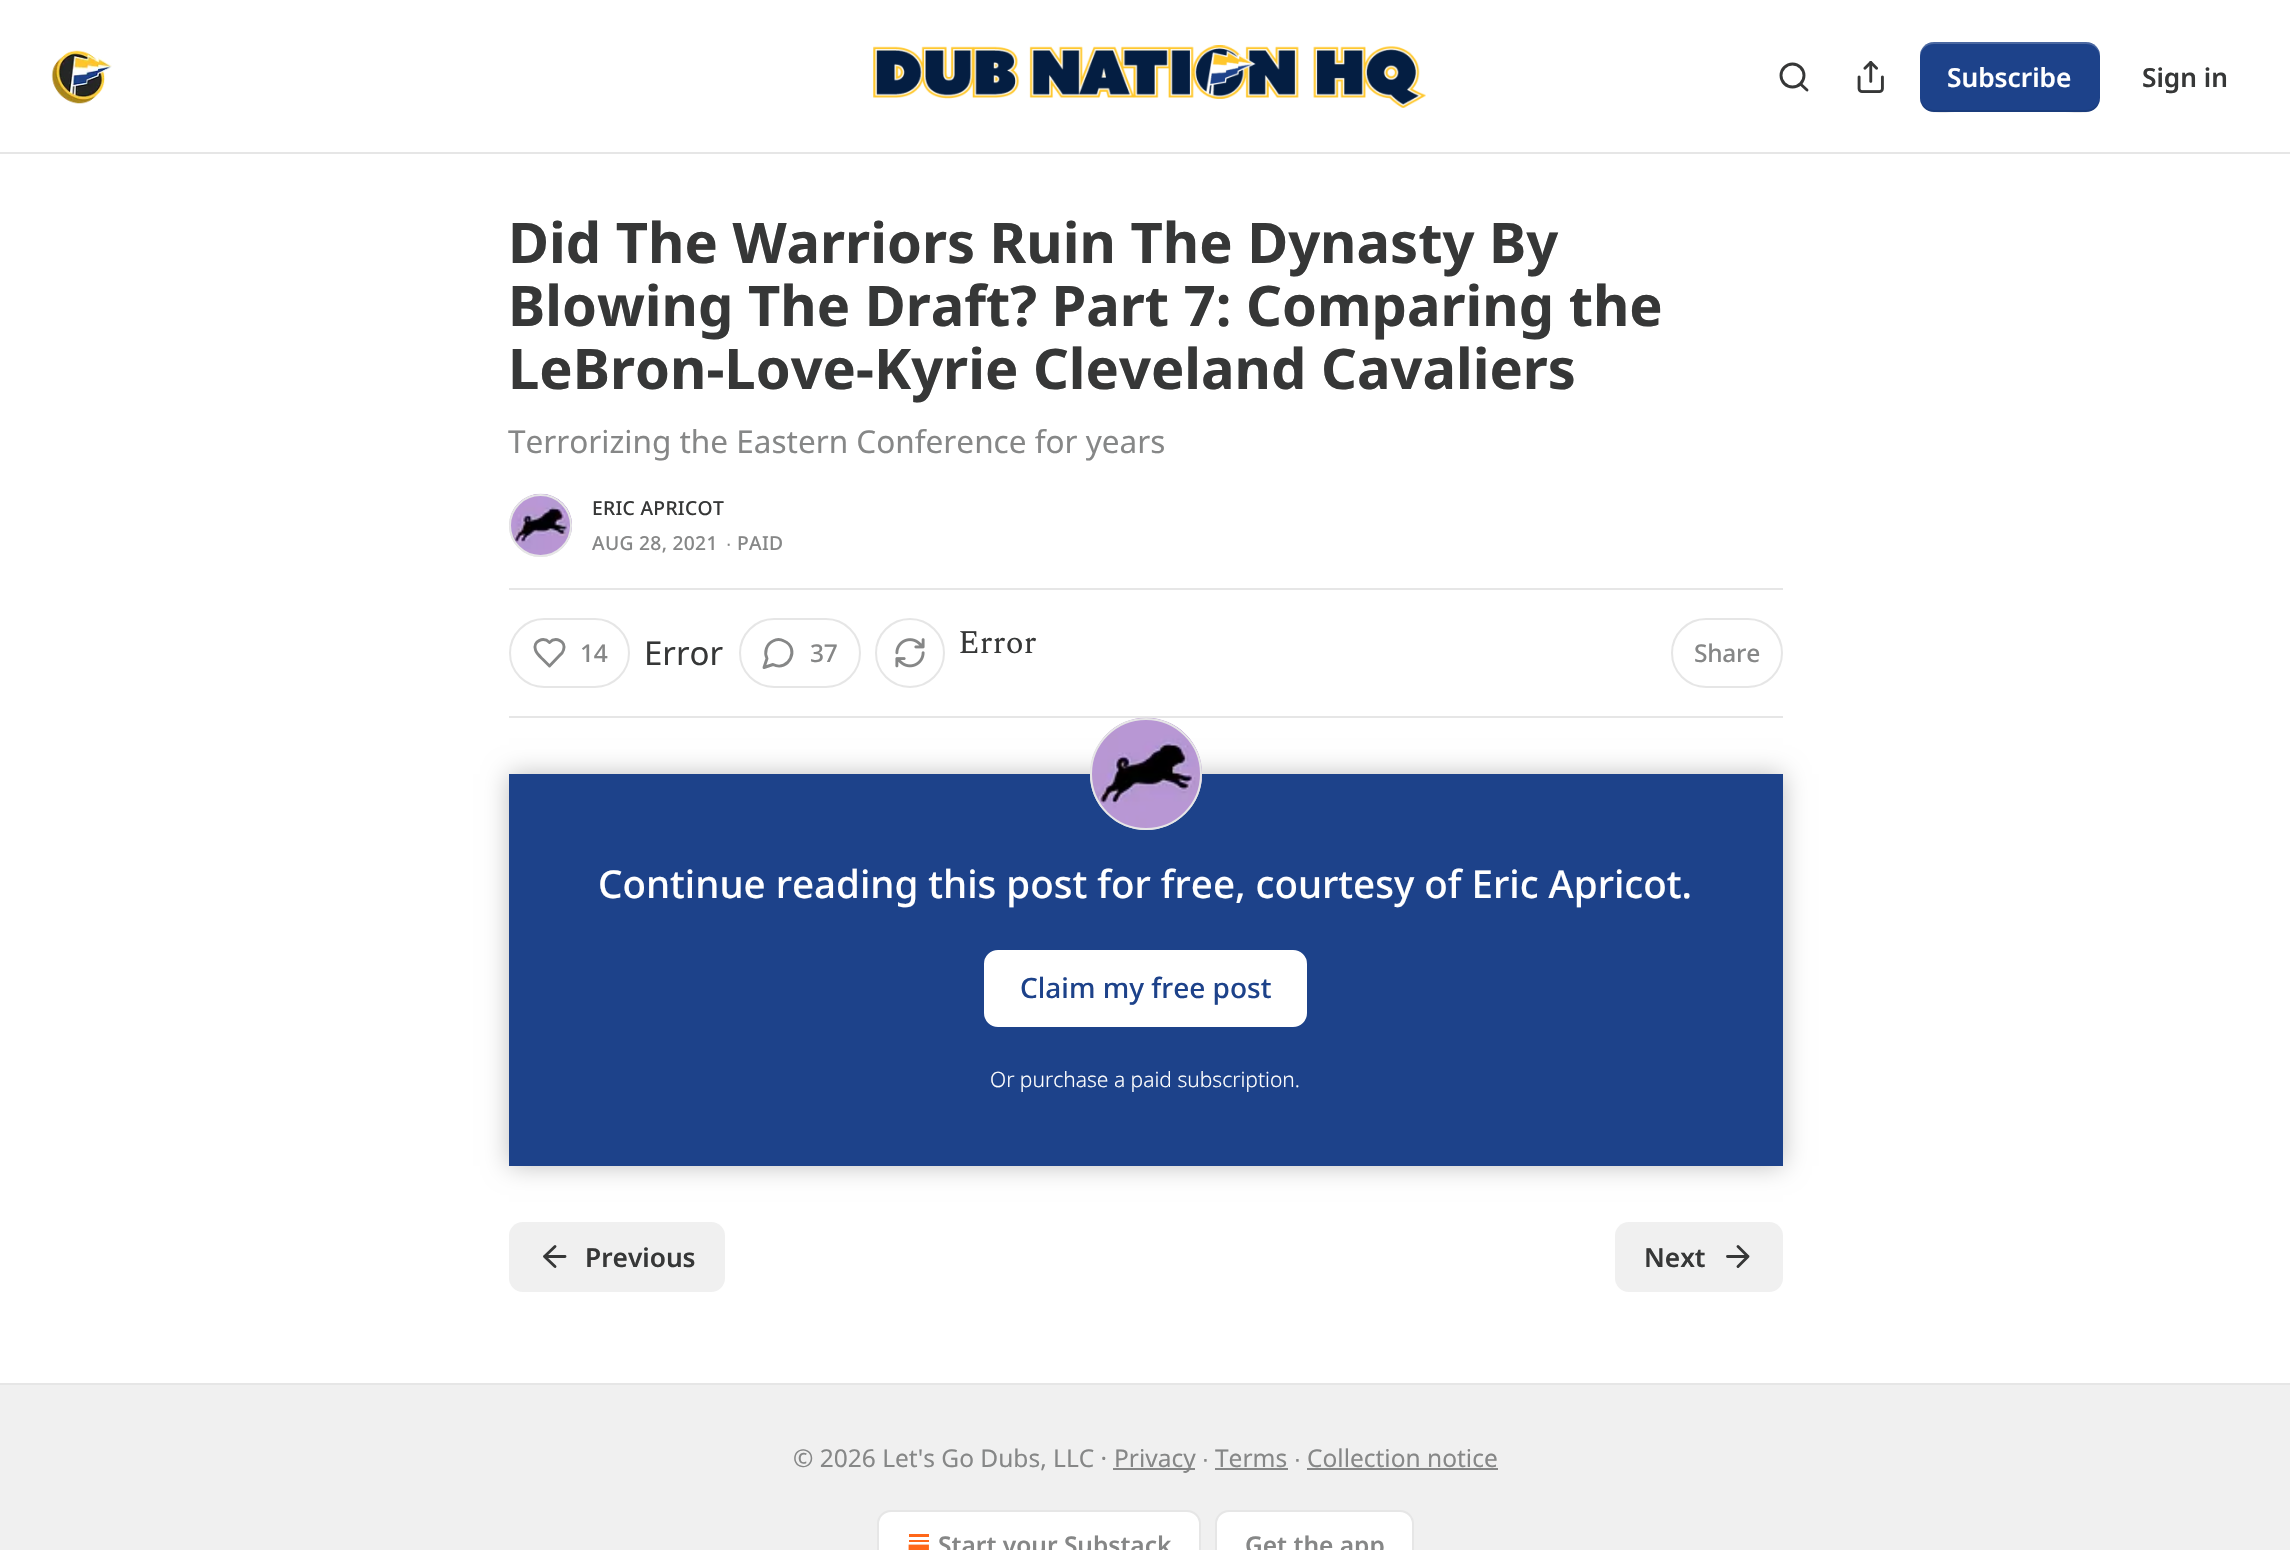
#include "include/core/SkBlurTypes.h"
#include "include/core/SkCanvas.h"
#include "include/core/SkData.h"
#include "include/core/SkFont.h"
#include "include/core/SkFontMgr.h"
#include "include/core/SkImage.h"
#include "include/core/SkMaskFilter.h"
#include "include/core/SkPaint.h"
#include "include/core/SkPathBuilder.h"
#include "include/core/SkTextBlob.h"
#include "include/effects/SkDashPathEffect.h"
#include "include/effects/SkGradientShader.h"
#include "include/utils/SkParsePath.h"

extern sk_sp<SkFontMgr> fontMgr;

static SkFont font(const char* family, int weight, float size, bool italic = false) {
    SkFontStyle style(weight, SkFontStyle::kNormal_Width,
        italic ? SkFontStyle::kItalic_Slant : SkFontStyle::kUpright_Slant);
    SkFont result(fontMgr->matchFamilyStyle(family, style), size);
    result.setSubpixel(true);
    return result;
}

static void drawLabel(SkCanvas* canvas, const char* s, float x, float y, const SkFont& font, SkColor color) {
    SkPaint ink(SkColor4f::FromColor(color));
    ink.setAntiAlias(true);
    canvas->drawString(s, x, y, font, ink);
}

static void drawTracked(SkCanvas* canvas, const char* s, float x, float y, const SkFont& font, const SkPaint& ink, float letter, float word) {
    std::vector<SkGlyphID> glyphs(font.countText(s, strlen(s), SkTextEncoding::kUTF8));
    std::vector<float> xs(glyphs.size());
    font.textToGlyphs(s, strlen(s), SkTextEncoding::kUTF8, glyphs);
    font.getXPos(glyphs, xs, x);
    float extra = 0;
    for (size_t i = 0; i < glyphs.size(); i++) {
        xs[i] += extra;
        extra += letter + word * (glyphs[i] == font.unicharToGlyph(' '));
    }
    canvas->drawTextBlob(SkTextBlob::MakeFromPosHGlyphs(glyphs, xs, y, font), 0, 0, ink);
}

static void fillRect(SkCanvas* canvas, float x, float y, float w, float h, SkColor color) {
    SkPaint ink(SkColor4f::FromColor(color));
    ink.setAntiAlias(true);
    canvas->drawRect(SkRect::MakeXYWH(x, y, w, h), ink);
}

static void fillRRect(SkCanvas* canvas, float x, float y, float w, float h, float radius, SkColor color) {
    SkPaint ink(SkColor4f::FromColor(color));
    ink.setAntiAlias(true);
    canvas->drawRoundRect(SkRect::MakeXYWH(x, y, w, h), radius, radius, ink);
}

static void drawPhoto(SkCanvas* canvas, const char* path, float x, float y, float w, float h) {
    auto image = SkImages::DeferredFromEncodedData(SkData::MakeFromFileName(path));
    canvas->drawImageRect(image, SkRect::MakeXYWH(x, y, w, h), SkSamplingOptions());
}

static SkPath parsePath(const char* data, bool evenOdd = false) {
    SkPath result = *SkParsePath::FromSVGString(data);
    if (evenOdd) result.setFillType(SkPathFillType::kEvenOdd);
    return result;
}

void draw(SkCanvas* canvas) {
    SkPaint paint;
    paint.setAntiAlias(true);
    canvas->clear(0xFFFFFFFF);
    fillRect(canvas, 0, 152, 2290, 2, 0xFFE6E6E6);
    drawPhoto(canvas, "assets/img1.png", 51, 50, 61, 54);
    drawPhoto(canvas, "assets/img2.png", 873, 45, 553, 63);
    paint.setStroke(true);
    paint.setStrokeWidth(2.9f);
    paint.setColor(0xFF363737);
    canvas->drawCircle(1792.5f, 75.5f, 11.5f, paint);
    paint.setStrokeCap(SkPaint::kRound_Cap);
    paint.setStrokeJoin(SkPaint::kRound_Join);
    canvas->drawPath(parsePath("M1807 90L1800.5 84"), paint);
    drawPhoto(canvas, "assets/img3.png", 1857, 61, 27, 32);
    fillRRect(canvas, 1920, 42, 180, 70, 14, 0xFF1D428A);
    paint.setStroke(false);
    paint.setColor(0x1A000000);
    canvas->drawPath(parsePath("M1920 96C1920 118 1944 112 1959 112H2061C2076 112 2100 118 2100 96C2100 104 2094 110 2086 110H1934C1926 110 1920 104 1920 96Z"), paint);
    paint.setColor(0x33FFFFFF);
    canvas->drawPath(parsePath("M1934 44H2086C2094 44 2100 50 2100 58C2100 36 2076 42 2061 42H1959C1944 42 1920 36 1920 58C1920 50 1926 44 1934 44Z"), paint);
    SkFont font1 = font("Noto Sans", 600, 26.25f);
    drawLabel(canvas, "Subscribe", 1947, 87, font1, 0xFFFFFFFF);
    drawLabel(canvas, "Sign in", 2142, 87, font1, 0xFF363737);
    SkFont font2 = font("Noto Sans", 700, 56);
    drawLabel(canvas, "Did The Warriors Ruin The Dynasty By", 508, 263, font2, 0xFF363737);
    drawLabel(canvas, "Blowing The Draft? Part 7: Comparing the", 508, 326, font2, 0xFF363737);
    drawLabel(canvas, "LeBron-Love-Kyrie Cleveland Cavaliers", 508, 389, font2, 0xFF363737);
    SkFont font3 = font("Noto Sans", 400, 31.5f);
    drawLabel(canvas, "Terrorizing the Eastern Conference for years", 508, 453, font3, 0xFF868787);
    paint.setStroke(true);
    paint.setStrokeWidth(2);
    paint.setStrokeCap(SkPaint::kButt_Cap);
    paint.setStrokeJoin(SkPaint::kMiter_Join);
    paint.setColor(0xFFE6E6E6);
    canvas->drawCircle(540.5f, 525.5f, 30.5f, paint);
    drawPhoto(canvas, "assets/img4.png", 509, 493, 63, 64);
    canvas->drawCircle(540.5f, 525.5f, 30.5f, paint);
    SkFont font4 = font("Noto Sans", 500, 19.25f);
    paint.setStroke(false);
    paint.setColor(0xFF363737);
    drawTracked(canvas, "ERIC APRICOT", 592, 515, font4, paint, 0.3f, 0);
    paint.setColor(0xFF868787);
    drawTracked(canvas, "AUG 28, 2021", 592, 550, font4, paint, 0.3f, 0);
    SkFont font5 = font("Liberation Sans", 400, 19.25f);
    drawTracked(canvas, "∙", 726, 550, font5, paint, 0.3f, 0);
    drawTracked(canvas, "PAID", 737, 550, font4, paint, 0.3f, 0);
    fillRect(canvas, 509, 588, 1274, 2, 0xFFE6E6E6);
    fillRect(canvas, 509, 716, 1274, 2, 0xFFE6E6E6);
    paint.setStroke(true);
    paint.setColor(0xFFE6E6E6);
    canvas->drawRoundRect(SkRect::MakeXYWH(510, 619, 119, 68), 34, 34, paint);
    paint.setStrokeWidth(2.9f);
    paint.setStrokeCap(SkPaint::kRound_Cap);
    paint.setStrokeJoin(SkPaint::kRound_Join);
    paint.setColor(0xFF868787);
    canvas->drawPath(parsePath("M559.5 655.5C561.5 654 563 652 563.5 650C566.5 641 555.5 636.5 549.5 642.5C543.5 636.5 532.5 641 535.5 650C536.5 653.5 540 656.5 542.5 659L549.5 666Z"), paint);
    SkFont font6 = font("Noto Sans", 500, 24.5f);
    paint.setStroke(false);
    drawTracked(canvas, "14", 580, 662, font6, paint, -0.25f, 0);
    SkFont font7 = font("Noto Sans", 400, 33);
    drawLabel(canvas, "Error", 644, 665, font7, 0xFF363737);
    paint.setStroke(true);
    paint.setStrokeWidth(2);
    paint.setStrokeCap(SkPaint::kButt_Cap);
    paint.setStrokeJoin(SkPaint::kMiter_Join);
    paint.setColor(0xFFE6E6E6);
    canvas->drawRoundRect(SkRect::MakeXYWH(740, 619, 120, 68), 34, 34, paint);
    paint.setStrokeWidth(2.9f);
    paint.setStrokeCap(SkPaint::kRound_Cap);
    paint.setStrokeJoin(SkPaint::kRound_Join);
    paint.setColor(0xFF868787);
    canvas->drawPath(parsePath("M773 664.5C788.5 672.5 800.5 648 784 641C780.5 639 776.5 639 773 641C766.5 644 764 652 767 658.5L764 667.5Z"), paint);
    paint.setStroke(false);
    drawTracked(canvas, "37", 810, 662, font6, paint, -0.25f, 0);
    paint.setStroke(true);
    paint.setStrokeWidth(2);
    paint.setStrokeCap(SkPaint::kButt_Cap);
    paint.setStrokeJoin(SkPaint::kMiter_Join);
    paint.setColor(0xFFE6E6E6);
    canvas->drawCircle(910, 653, 34, paint);
    drawPhoto(canvas, "assets/img5.png", 895, 638, 30, 30);
    SkFont font8 = font("Spectral", 400, 33);
    drawLabel(canvas, "Error", 958, 653, font8, 0xFF363737);
    canvas->drawRoundRect(SkRect::MakeXYWH(1672, 619, 110, 68), 34, 34, paint);
    paint.setStroke(false);
    paint.setColor(0xFF868787);
    drawTracked(canvas, "Share", 1694, 662, font6, paint, -0.25f, 0);
    fillRect(canvas, 509, 774, 1274, 392, 0xFF1D428A);
    paint.setColor(0xFFFFFFFF);
    canvas->drawRoundRect(SkRect::MakeXYWH(985, 951, 321, 75), 13, 13, paint);
    paint.setStroke(true);
    canvas->drawRoundRect(SkRect::MakeXYWH(985, 951, 321, 75), 13, 13, paint);
    canvas->save();
    canvas->clipPath(parsePath("M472 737H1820V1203H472ZM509 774H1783V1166H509Z", true), true);
    paint.setStroke(false);
    paint.setColor(0x40000000);
    paint.setMaskFilter(SkMaskFilter::MakeBlur(kNormal_SkBlurStyle, 12));
    canvas->drawRect(SkRect::MakeXYWH(509, 774, 1274, 392), paint);
    paint.setMaskFilter(nullptr);
    canvas->restore();
    paint.setStroke(true);
    paint.setColor(0xFFE6E6E6);
    canvas->drawCircle(1146, 774, 55, paint);
    drawPhoto(canvas, "assets/img6.png", 1090, 717, 112, 113);
    canvas->drawCircle(1146, 774, 55, paint);
    SkFont font9 = font("Noto Sans", 500, 38.5f);
    drawLabel(canvas, "Continue reading this post for free, courtesy of Eric Apricot.", 598, 898, font9, 0xFFFFFFFF);
    SkFont font10 = font("Noto Sans", 500, 28);
    drawLabel(canvas, "Claim my free post", 1020, 998, font10, 0xFF1D428A);
    SkFont font11 = font("Noto Sans", 300, 21);
    drawLabel(canvas, "Or purchase a paid subscription.", 990, 1087, font11, 0xFFFFFFFF);
    fillRRect(canvas, 509, 1222, 216, 70, 14, 0xFFF0F0F0);
    paint.setStrokeWidth(2.9f);
    paint.setStrokeCap(SkPaint::kRound_Cap);
    paint.setStrokeJoin(SkPaint::kRound_Join);
    paint.setColor(0xFF363737);
    canvas->drawPath(parsePath("M555 1266.5L544.5 1256.5L555 1246.5M565 1256.5H544.5"), paint);
    drawLabel(canvas, "Previous", 585, 1267, font1, 0xFF363737);
    fillRRect(canvas, 1615, 1222, 168, 70, 14, 0xFFF0F0F0);
    drawLabel(canvas, "Next", 1644, 1267, font1, 0xFF363737);
    canvas->drawPath(parsePath("M1727.5 1256.5H1748M1738 1246.5L1748 1256.5L1738 1266.5"), paint);
    fillRect(canvas, 0, 1385, 2290, 165, 0xFFF0F0F0);
    fillRect(canvas, 0, 1383, 2290, 2, 0xFFE6E6E6);
    SkFont font12 = font("Noto Sans", 400, 24.5f);
    drawLabel(canvas, "© 2026 Let's Go Dubs, LLC ·", 793, 1467, font12, 0xFF868787);
    fillRect(canvas, 1113, 1468, 82, 2, 0xFF868787);
    drawLabel(canvas, "Privacy", 1114, 1467, font12, 0xFF868787);
    SkFont font13 = font("Liberation Sans", 400, 24.5f);
    drawLabel(canvas, "∙", 1202, 1467, font13, 0xFF868787);
    drawLabel(canvas, "Terms", 1215, 1467, font12, 0xFF868787);
    fillRect(canvas, 1215, 1468, 73, 2, 0xFF868787);
    drawLabel(canvas, "∙", 1294, 1467, font13, 0xFF868787);
    drawLabel(canvas, "Collection notice", 1307, 1467, font12, 0xFF868787);
    fillRect(canvas, 1307, 1468, 191, 2, 0xFF868787);
    paint.setStroke(false);
    paint.setColor(0xFFFFFFFF);
    canvas->drawRoundRect(SkRect::MakeXYWH(878, 1511, 322, 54), 13, 13, paint);
    paint.setStroke(true);
    paint.setStrokeWidth(2);
    paint.setStrokeCap(SkPaint::kButt_Cap);
    paint.setStrokeJoin(SkPaint::kMiter_Join);
    paint.setColor(0xFFE6E6E6);
    canvas->drawRoundRect(SkRect::MakeXYWH(878, 1511, 322, 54), 13, 13, paint);
    drawPhoto(canvas, "assets/img7.png", 908, 1534, 21, 16);
    SkFont font14 = font("Noto Sans", 600, 24.5f);
    drawLabel(canvas, "Start your Substack", 938, 1554, font14, 0xFF868787);
    paint.setStroke(false);
    paint.setColor(0xFFFFFFFF);
    canvas->drawRoundRect(SkRect::MakeXYWH(1216, 1511, 197, 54), 13, 13, paint);
    paint.setStroke(true);
    paint.setColor(0xFFE6E6E6);
    canvas->drawRoundRect(SkRect::MakeXYWH(1216, 1511, 197, 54), 13, 13, paint);
    drawLabel(canvas, "Get the app", 1245, 1554, font14, 0xFF868787);
}
